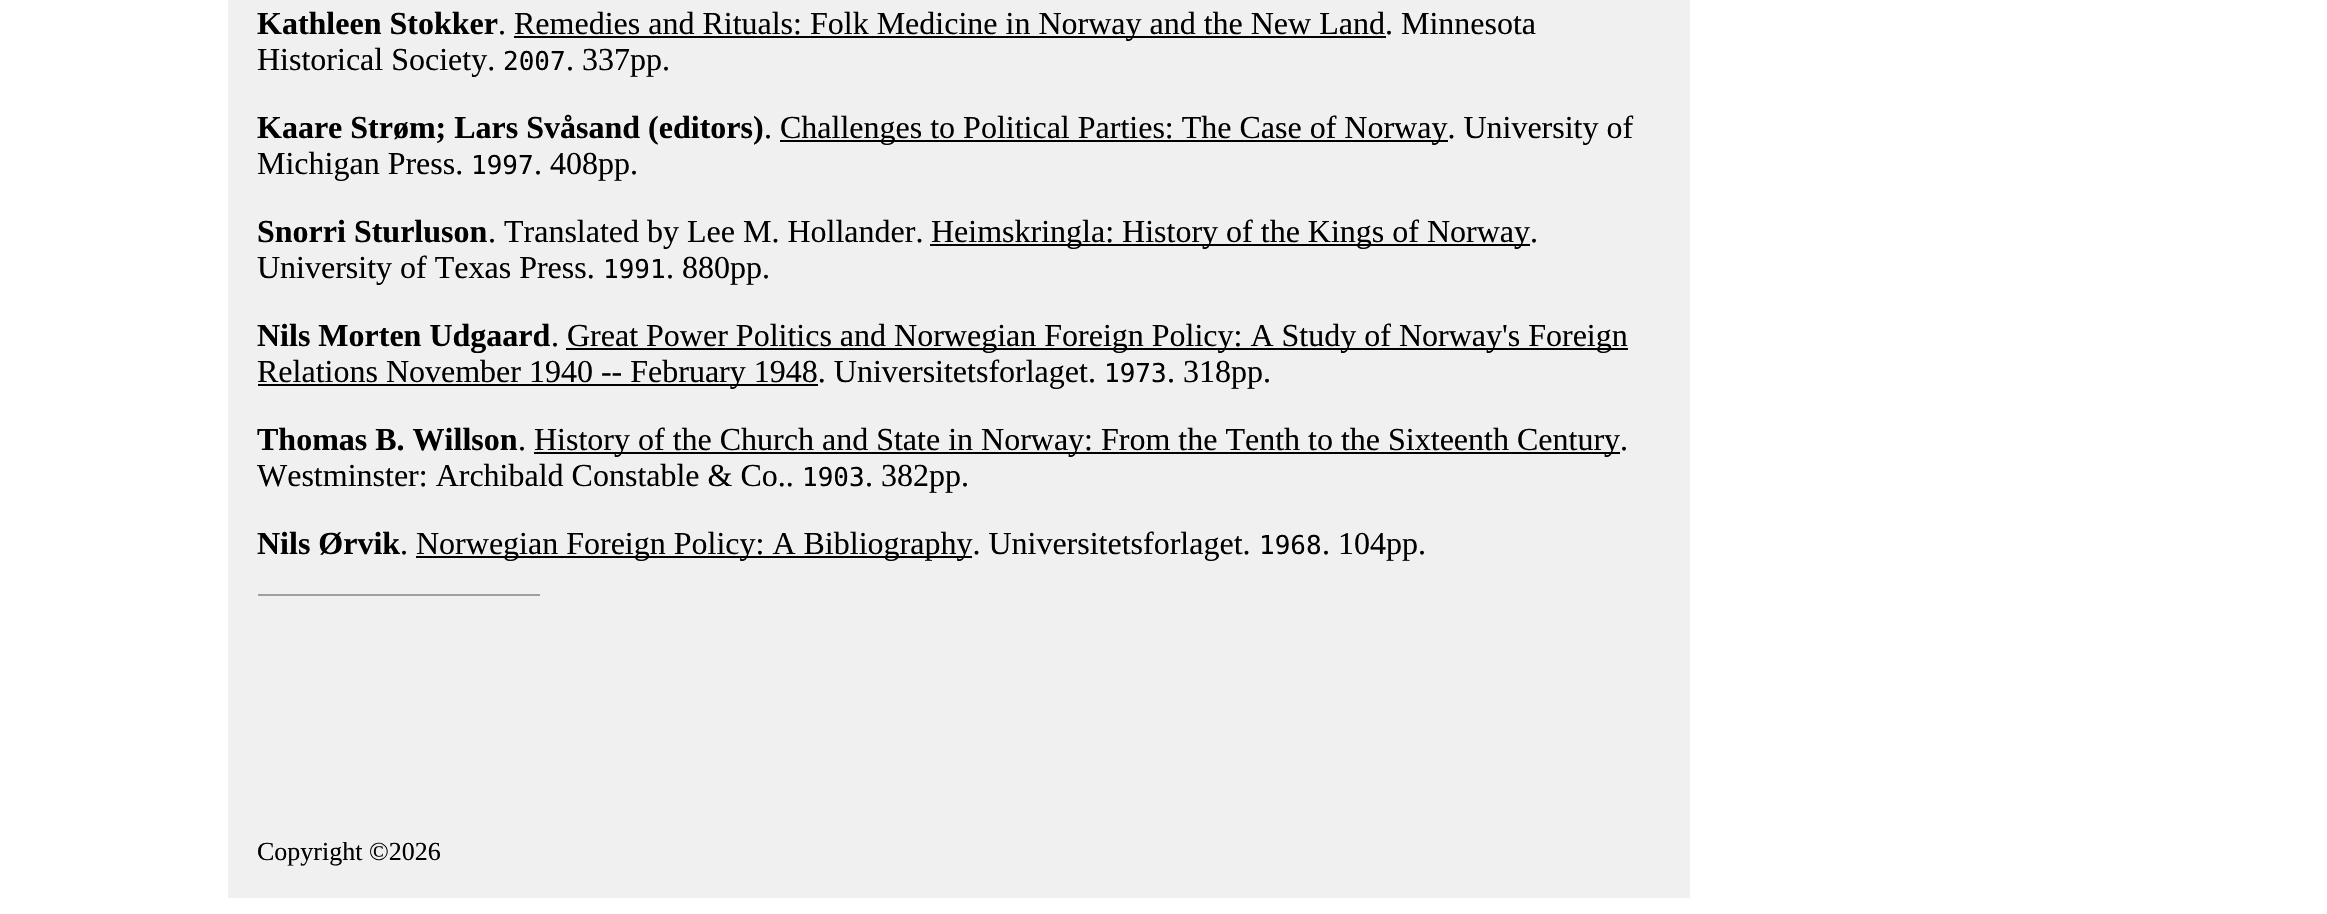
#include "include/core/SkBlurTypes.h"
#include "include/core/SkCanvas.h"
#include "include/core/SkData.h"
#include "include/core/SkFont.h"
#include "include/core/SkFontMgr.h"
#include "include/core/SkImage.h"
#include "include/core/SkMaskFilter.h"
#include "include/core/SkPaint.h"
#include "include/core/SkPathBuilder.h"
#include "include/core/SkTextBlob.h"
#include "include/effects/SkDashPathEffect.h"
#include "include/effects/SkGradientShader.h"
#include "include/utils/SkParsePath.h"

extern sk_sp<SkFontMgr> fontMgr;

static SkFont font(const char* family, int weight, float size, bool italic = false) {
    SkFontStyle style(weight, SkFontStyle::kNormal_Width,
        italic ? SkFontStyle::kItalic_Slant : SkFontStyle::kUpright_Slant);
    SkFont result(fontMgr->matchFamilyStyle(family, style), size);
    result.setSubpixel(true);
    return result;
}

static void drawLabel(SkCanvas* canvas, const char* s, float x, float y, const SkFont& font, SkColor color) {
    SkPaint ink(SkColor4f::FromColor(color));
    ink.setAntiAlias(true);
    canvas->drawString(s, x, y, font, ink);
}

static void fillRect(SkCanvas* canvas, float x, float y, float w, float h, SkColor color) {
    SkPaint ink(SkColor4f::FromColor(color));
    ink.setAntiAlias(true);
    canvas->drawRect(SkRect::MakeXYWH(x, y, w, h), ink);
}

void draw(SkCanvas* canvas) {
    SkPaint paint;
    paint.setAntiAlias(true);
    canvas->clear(0xFFFFFFFF);
    fillRect(canvas, 228, 0, 1462, 898, 0xFFF0F0F0);
    SkFont font1 = font("Liberation Serif", 700, 32);
    drawLabel(canvas, "Kathleen Stokker", 257, 34, font1, 0xFF000000);
    SkFont font2 = font("Liberation Serif", 400, 32);
    drawLabel(canvas, ".", 498, 34, font2, 0xFF000000);
    fillRect(canvas, 514, 36, 872, 2, 0xFF000000);
    drawLabel(canvas, "Remedies and Rituals: Folk Medicine in Norway and the New Land. Minnesota", 514, 34, font2, 0xFF000000);
    drawLabel(canvas, "Historical Society.", 257, 70, font2, 0xFF000000);
    SkFont font3 = font("DejaVu Sans Mono", 400, 26);
    drawLabel(canvas, "2007", 503, 70, font3, 0xFF000000);
    drawLabel(canvas, ". 337pp.", 566, 70, font2, 0xFF000000);
    drawLabel(canvas, "Kaare Strøm; Lars Svåsand (editors)", 257, 138, font1, 0xFF000000);
    drawLabel(canvas, ".", 764, 138, font2, 0xFF000000);
    fillRect(canvas, 780, 140, 668, 2, 0xFF000000);
    drawLabel(canvas, "Challenges to Political Parties: The Case of Norway. University of", 780, 138, font2, 0xFF000000);
    drawLabel(canvas, "Michigan Press.", 257, 174, font2, 0xFF000000);
    drawLabel(canvas, "1997", 471, 174, font3, 0xFF000000);
    drawLabel(canvas, ". 408pp.", 534, 174, font2, 0xFF000000);
    drawLabel(canvas, "Snorri Sturluson", 257, 242, font1, 0xFF000000);
    drawLabel(canvas, ". Translated by Lee M. Hollander.", 488, 242, font2, 0xFF000000);
    fillRect(canvas, 930, 244, 600, 2, 0xFF000000);
    drawLabel(canvas, "Heimskringla: History of the Kings of Norway.", 931, 242, font2, 0xFF000000);
    drawLabel(canvas, "University of Texas Press.", 257, 278, font2, 0xFF000000);
    drawLabel(canvas, "1991", 603, 278, font3, 0xFF000000);
    drawLabel(canvas, ". 880pp.", 666, 278, font2, 0xFF000000);
    drawLabel(canvas, "Nils Morten Udgaard", 257, 346, font1, 0xFF000000);
    drawLabel(canvas, ".", 551, 346, font2, 0xFF000000);
    fillRect(canvas, 566, 348, 1062, 2, 0xFF000000);
    drawLabel(canvas, "Great Power Politics and Norwegian Foreign Policy: A Study of Norway's Foreign", 567, 346, font2, 0xFF000000);
    fillRect(canvas, 258, 384, 560, 2, 0xFF000000);
    drawLabel(canvas, "Relations November 1940 -- February 1948. Universitetsforlaget.", 257, 382, font2, 0xFF000000);
    drawLabel(canvas, "1973", 1104, 382, font3, 0xFF000000);
    drawLabel(canvas, ". 318pp.", 1167, 382, font2, 0xFF000000);
    drawLabel(canvas, "Thomas B. Willson", 257, 450, font1, 0xFF000000);
    drawLabel(canvas, ".", 518, 450, font2, 0xFF000000);
    fillRect(canvas, 534, 452, 1086, 2, 0xFF000000);
    drawLabel(canvas, "History of the Church and State in Norway: From the Tenth to the Sixteenth Century.", 534, 450, font2, 0xFF000000);
    drawLabel(canvas, "Westminster: Archibald Constable & Co..", 257, 486, font2, 0xFF000000);
    drawLabel(canvas, "1903", 802, 486, font3, 0xFF000000);
    drawLabel(canvas, ". 382pp.", 865, 486, font2, 0xFF000000);
    drawLabel(canvas, "Nils Ørvik", 257, 554, font1, 0xFF000000);
    drawLabel(canvas, ".", 400, 554, font2, 0xFF000000);
    fillRect(canvas, 416, 556, 556, 2, 0xFF000000);
    drawLabel(canvas, "Norwegian Foreign Policy: A Bibliography. Universitetsforlaget.", 416, 554, font2, 0xFF000000);
    drawLabel(canvas, "1968", 1259, 554, font3, 0xFF000000);
    drawLabel(canvas, ". 104pp.", 1322, 554, font2, 0xFF000000);
    fillRect(canvas, 258, 594, 284, 2, 0xFF9F9F9F);
    fillRect(canvas, 540, 594, 2, 2, 0xFFEEEEEE);
    SkFont font4 = font("Liberation Serif", 400, 26);
    drawLabel(canvas, "Copyright ©2026", 257, 860, font4, 0xFF000000);
}
